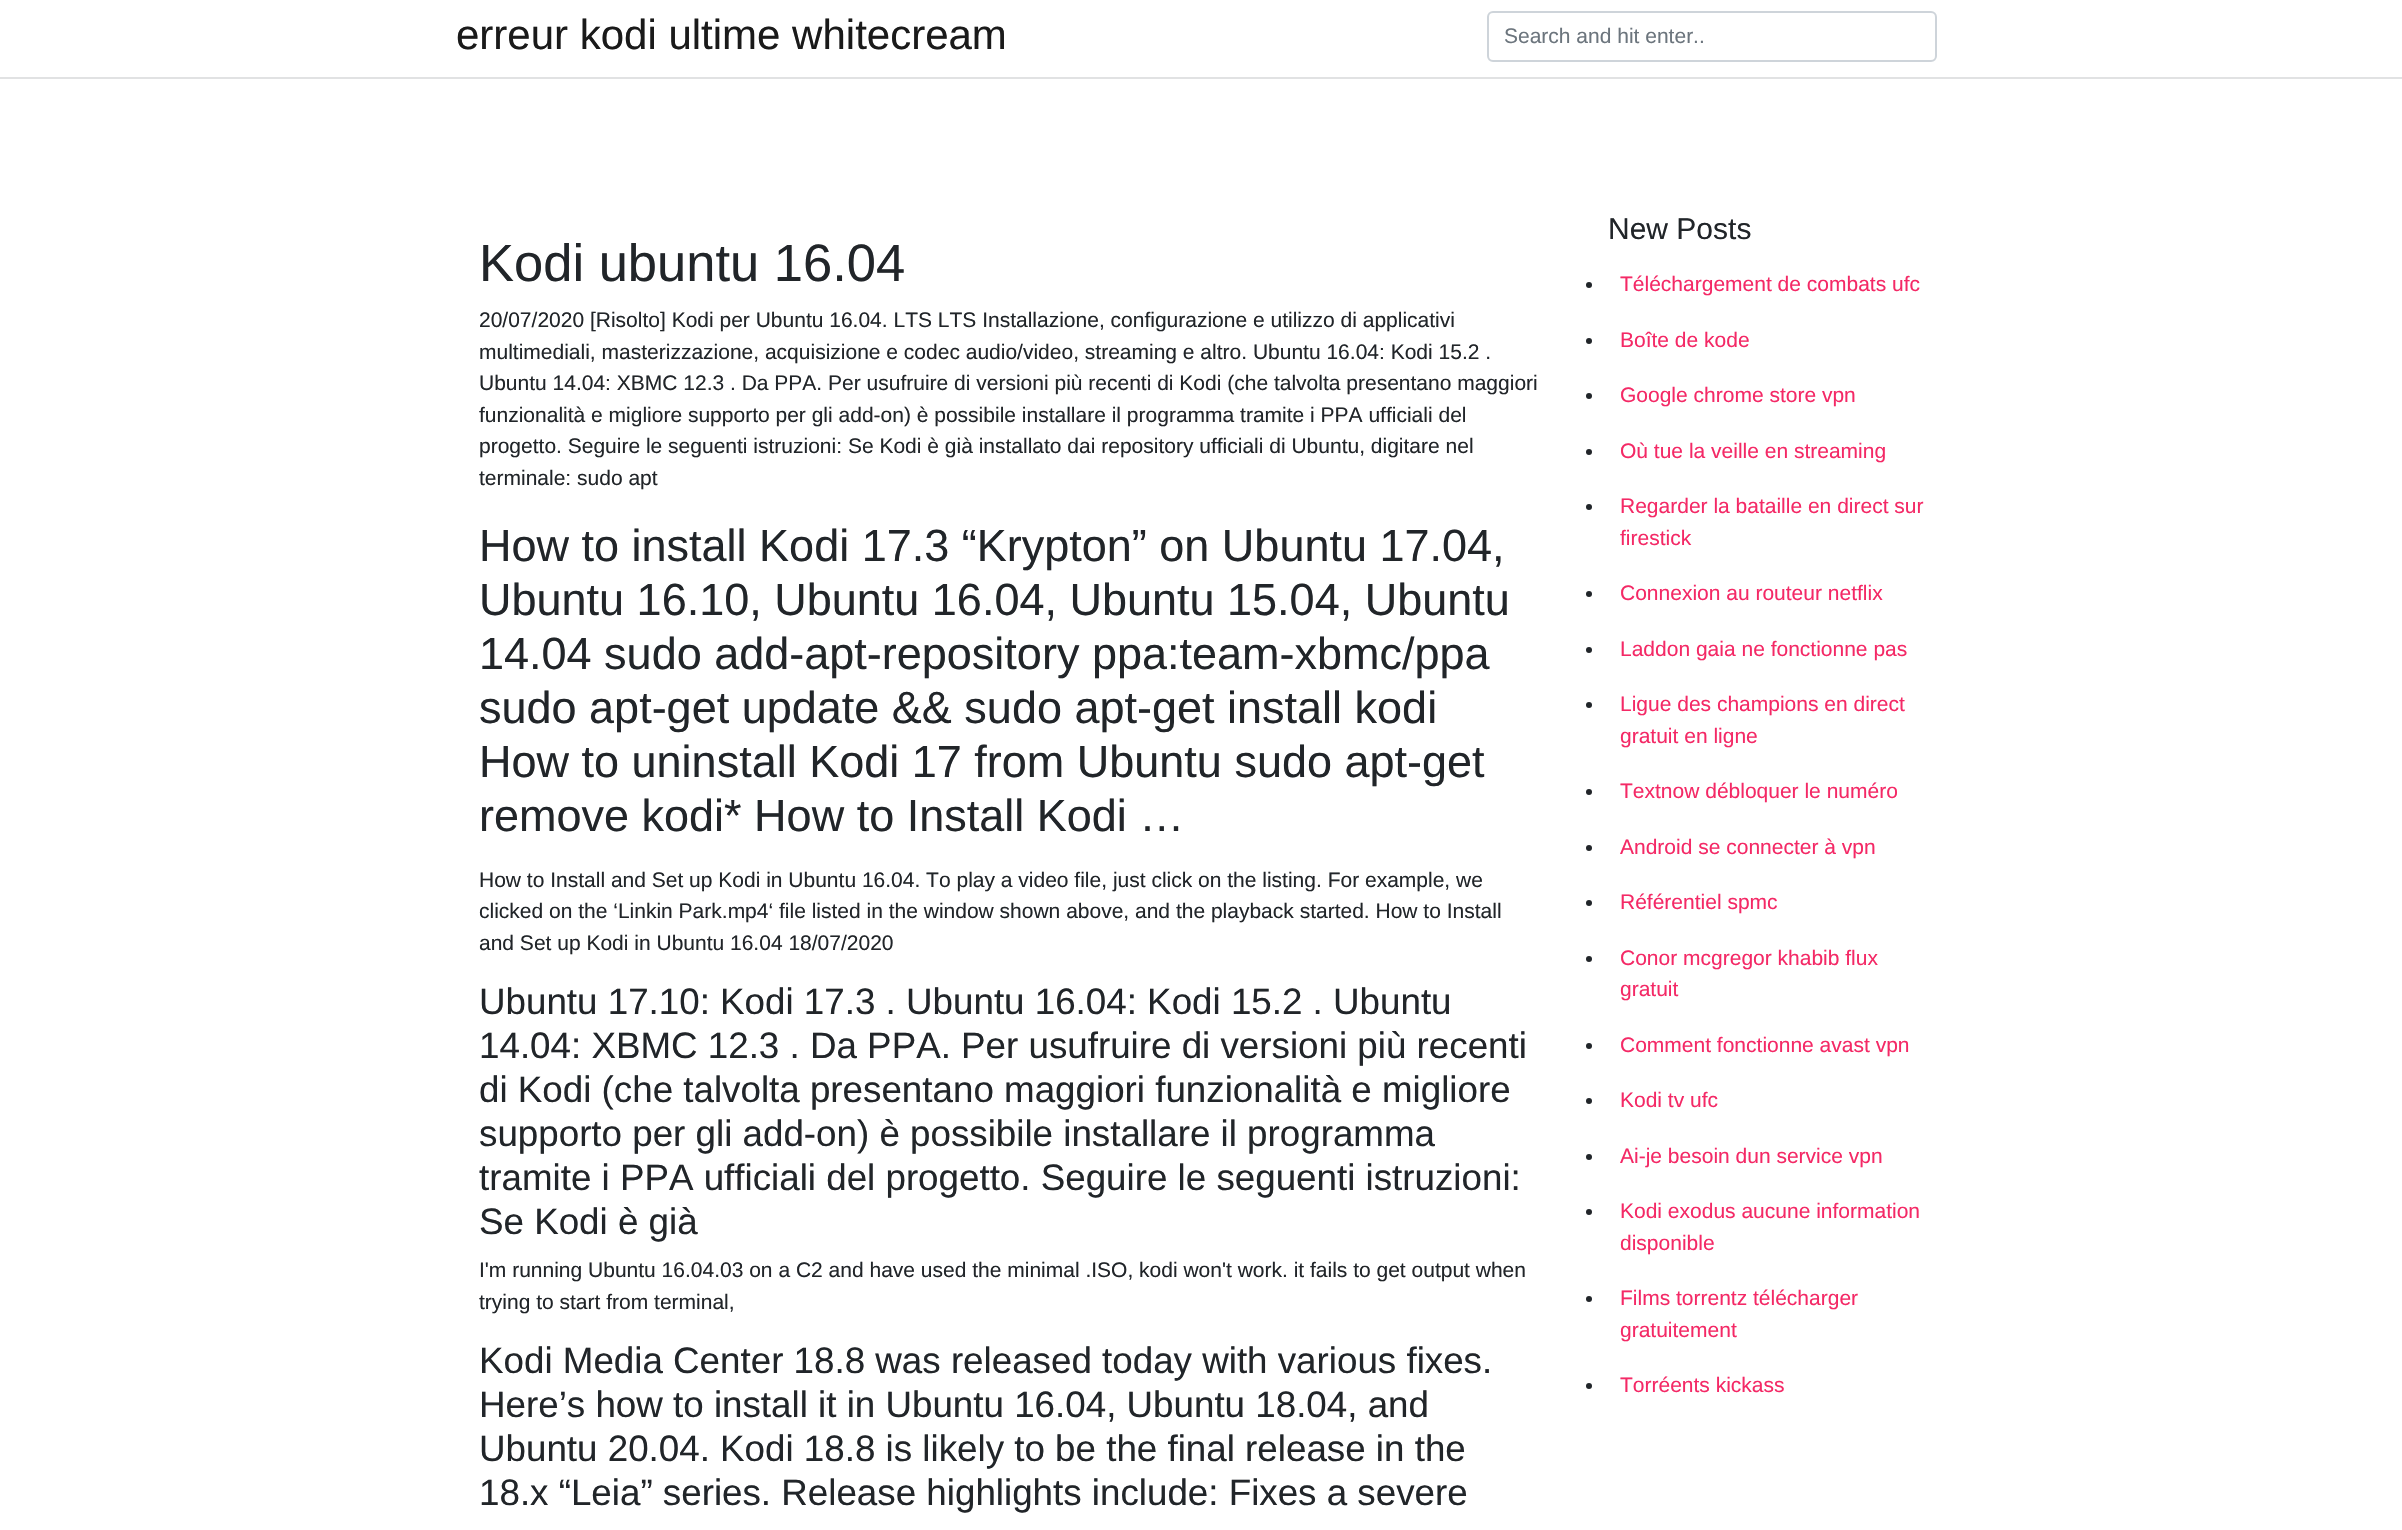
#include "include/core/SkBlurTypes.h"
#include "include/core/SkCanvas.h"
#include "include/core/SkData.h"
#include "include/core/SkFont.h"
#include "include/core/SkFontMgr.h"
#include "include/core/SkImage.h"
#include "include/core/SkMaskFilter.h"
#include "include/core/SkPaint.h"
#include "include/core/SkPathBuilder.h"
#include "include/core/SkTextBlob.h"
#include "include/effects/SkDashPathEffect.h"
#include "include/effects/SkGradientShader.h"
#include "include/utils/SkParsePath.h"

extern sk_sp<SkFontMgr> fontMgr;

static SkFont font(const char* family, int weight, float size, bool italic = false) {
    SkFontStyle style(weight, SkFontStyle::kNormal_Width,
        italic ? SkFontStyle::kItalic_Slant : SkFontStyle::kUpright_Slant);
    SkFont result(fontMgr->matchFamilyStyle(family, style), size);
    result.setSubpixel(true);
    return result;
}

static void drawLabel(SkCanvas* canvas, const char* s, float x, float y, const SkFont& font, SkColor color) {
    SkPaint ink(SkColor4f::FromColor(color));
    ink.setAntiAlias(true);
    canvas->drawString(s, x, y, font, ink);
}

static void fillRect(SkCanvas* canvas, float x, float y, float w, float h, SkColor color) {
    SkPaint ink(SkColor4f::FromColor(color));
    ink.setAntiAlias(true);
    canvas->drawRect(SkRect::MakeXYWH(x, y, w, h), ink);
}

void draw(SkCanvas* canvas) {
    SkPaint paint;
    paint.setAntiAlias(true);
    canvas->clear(0xFFFFFFFF);
    fillRect(canvas, 0, 77, 2402, 2, 0xFFE1E2E3);
    SkFont font1 = font("Liberation Sans", 400, 42);
    drawLabel(canvas, "erreur kodi ultime whitecream", 456, 49, font1, 0xFF1A1A1A);
    paint.setStroke(true);
    paint.setStrokeWidth(2);
    paint.setColor(0xFFCED4DA);
    canvas->drawRoundRect(SkRect::MakeXYWH(1488, 12, 448, 49), 5, 5, paint);
    SkFont font2 = font("Liberation Sans", 400, 21);
    drawLabel(canvas, "Search and hit enter..", 1504, 43, font2, 0xFF6C757D);
    SkFont font3 = font("Liberation Sans", 400, 52.5f);
    drawLabel(canvas, "Kodi ubuntu 16.04", 479, 281, font3, 0xFF212529);
    drawLabel(canvas, "20/07/2020 [Risolto] Kodi per Ubuntu 16.04. LTS LTS Installazione, configurazione e utilizzo di applicativi", 479, 327, font2, 0xFF212529);
    drawLabel(canvas, "multimediali, masterizzazione, acquisizione e codec audio/video, streaming e altro. Ubuntu 16.04: Kodi 15.2 .", 479, 359, font2, 0xFF212529);
    drawLabel(canvas, "Ubuntu 14.04: XBMC 12.3 . Da PPA. Per usufruire di versioni più recenti di Kodi (che talvolta presentano maggiori", 479, 390, font2, 0xFF212529);
    drawLabel(canvas, "funzionalità e migliore supporto per gli add-on) è possibile installare il programma tramite i PPA ufficiali del", 479, 422, font2, 0xFF212529);
    drawLabel(canvas, "progetto. Seguire le seguenti istruzioni: Se Kodi è già installato dai repository ufficiali di Ubuntu, digitare nel", 479, 453, font2, 0xFF212529);
    drawLabel(canvas, "terminale: sudo apt", 479, 485, font2, 0xFF212529);
    SkFont font4 = font("Liberation Sans", 400, 45);
    drawLabel(canvas, "How to install Kodi 17.3 “Krypton” on Ubuntu 17.04,", 479, 561, font4, 0xFF212529);
    drawLabel(canvas, "Ubuntu 16.10, Ubuntu 16.04, Ubuntu 15.04, Ubuntu", 479, 615, font4, 0xFF212529);
    drawLabel(canvas, "14.04 sudo add-apt-repository ppa:team-xbmc/ppa", 479, 669, font4, 0xFF212529);
    drawLabel(canvas, "sudo apt-get update && sudo apt-get install kodi", 479, 723, font4, 0xFF212529);
    drawLabel(canvas, "How to uninstall Kodi 17 from Ubuntu sudo apt-get", 479, 777, font4, 0xFF212529);
    drawLabel(canvas, "remove kodi* How to Install Kodi …", 479, 831, font4, 0xFF212529);
    drawLabel(canvas, "How to Install and Set up Kodi in Ubuntu 16.04. To play a video file, just click on the listing. For example, we", 479, 887, font2, 0xFF212529);
    drawLabel(canvas, "clicked on the ‘Linkin Park.mp4‘ file listed in the window shown above, and the playback started. How to Install", 479, 918, font2, 0xFF212529);
    drawLabel(canvas, "and Set up Kodi in Ubuntu 16.04 18/07/2020", 479, 950, font2, 0xFF212529);
    SkFont font5 = font("Liberation Sans", 400, 36.75f);
    drawLabel(canvas, "Ubuntu 17.10: Kodi 17.3 . Ubuntu 16.04: Kodi 15.2 . Ubuntu", 479, 1014, font5, 0xFF212529);
    drawLabel(canvas, "14.04: XBMC 12.3 . Da PPA. Per usufruire di versioni più recenti", 479, 1058, font5, 0xFF212529);
    drawLabel(canvas, "di Kodi (che talvolta presentano maggiori funzionalità e migliore", 479, 1102, font5, 0xFF212529);
    drawLabel(canvas, "supporto per gli add-on) è possibile installare il programma", 479, 1146, font5, 0xFF212529);
    drawLabel(canvas, "tramite i PPA ufficiali del progetto. Seguire le seguenti istruzioni:", 479, 1190, font5, 0xFF212529);
    drawLabel(canvas, "Se Kodi è già", 479, 1234, font5, 0xFF212529);
    drawLabel(canvas, "I'm running Ubuntu 16.04.03 on a C2 and have used the minimal .ISO, kodi won't work. it fails to get output when", 479, 1277, font2, 0xFF212529);
    drawLabel(canvas, "trying to start from terminal,", 479, 1309, font2, 0xFF212529);
    drawLabel(canvas, "Kodi Media Center 18.8 was released today with various fixes.", 479, 1373, font5, 0xFF212529);
    drawLabel(canvas, "Here’s how to install it in Ubuntu 16.04, Ubuntu 18.04, and", 479, 1417, font5, 0xFF212529);
    drawLabel(canvas, "Ubuntu 20.04. Kodi 18.8 is likely to be the final release in the", 479, 1461, font5, 0xFF212529);
    drawLabel(canvas, "18.x “Leia” series. Release highlights include: Fixes a severe", 479, 1505, font5, 0xFF212529);
    SkFont font6 = font("Liberation Sans", 400, 30);
    drawLabel(canvas, "New Posts", 1608, 239, font6, 0xFF212529);
    paint.setStroke(false);
    paint.setColor(0xFF212529);
    canvas->drawCircle(1589, 285, 3, paint);
    drawLabel(canvas, "Téléchargement de combats ufc", 1620, 291, font2, 0xFFF42966);
    canvas->drawCircle(1589, 341, 3, paint);
    drawLabel(canvas, "Boîte de kode", 1620, 347, font2, 0xFFF42966);
    canvas->drawCircle(1589, 396, 3, paint);
    drawLabel(canvas, "Google chrome store vpn", 1620, 402, font2, 0xFFF42966);
    canvas->drawCircle(1589, 452, 3, paint);
    drawLabel(canvas, "Où tue la veille en streaming", 1620, 458, font2, 0xFFF42966);
    canvas->drawCircle(1589, 507, 3, paint);
    drawLabel(canvas, "Regarder la bataille en direct sur", 1620, 513, font2, 0xFFF42966);
    drawLabel(canvas, "firestick", 1620, 545, font2, 0xFFF42966);
    canvas->drawCircle(1589, 594, 3, paint);
    drawLabel(canvas, "Connexion au routeur netflix", 1620, 600, font2, 0xFFF42966);
    canvas->drawCircle(1589, 650, 3, paint);
    drawLabel(canvas, "Laddon gaia ne fonctionne pas", 1620, 656, font2, 0xFFF42966);
    canvas->drawCircle(1589, 705, 3, paint);
    drawLabel(canvas, "Ligue des champions en direct", 1620, 711, font2, 0xFFF42966);
    drawLabel(canvas, "gratuit en ligne", 1620, 743, font2, 0xFFF42966);
    canvas->drawCircle(1589, 792, 3, paint);
    drawLabel(canvas, "Textnow débloquer le numéro", 1620, 798, font2, 0xFFF42966);
    canvas->drawCircle(1589, 848, 3, paint);
    drawLabel(canvas, "Android se connecter à vpn", 1620, 854, font2, 0xFFF42966);
    canvas->drawCircle(1589, 903, 3, paint);
    drawLabel(canvas, "Référentiel spmc", 1620, 909, font2, 0xFFF42966);
    canvas->drawCircle(1589, 959, 3, paint);
    drawLabel(canvas, "Conor mcgregor khabib flux", 1620, 965, font2, 0xFFF42966);
    drawLabel(canvas, "gratuit", 1620, 996, font2, 0xFFF42966);
    canvas->drawCircle(1589, 1046, 3, paint);
    drawLabel(canvas, "Comment fonctionne avast vpn", 1620, 1052, font2, 0xFFF42966);
    canvas->drawCircle(1589, 1101, 3, paint);
    drawLabel(canvas, "Kodi tv ufc", 1620, 1107, font2, 0xFFF42966);
    canvas->drawCircle(1589, 1157, 3, paint);
    drawLabel(canvas, "Ai-je besoin dun service vpn", 1620, 1163, font2, 0xFFF42966);
    canvas->drawCircle(1589, 1212, 3, paint);
    drawLabel(canvas, "Kodi exodus aucune information", 1620, 1218, font2, 0xFFF42966);
    drawLabel(canvas, "disponible", 1620, 1250, font2, 0xFFF42966);
    canvas->drawCircle(1589, 1299, 3, paint);
    drawLabel(canvas, "Films torrentz télécharger", 1620, 1305, font2, 0xFFF42966);
    drawLabel(canvas, "gratuitement", 1620, 1337, font2, 0xFFF42966);
    canvas->drawCircle(1589, 1386, 3, paint);
    drawLabel(canvas, "Torréents kickass", 1620, 1392, font2, 0xFFF42966);
}
